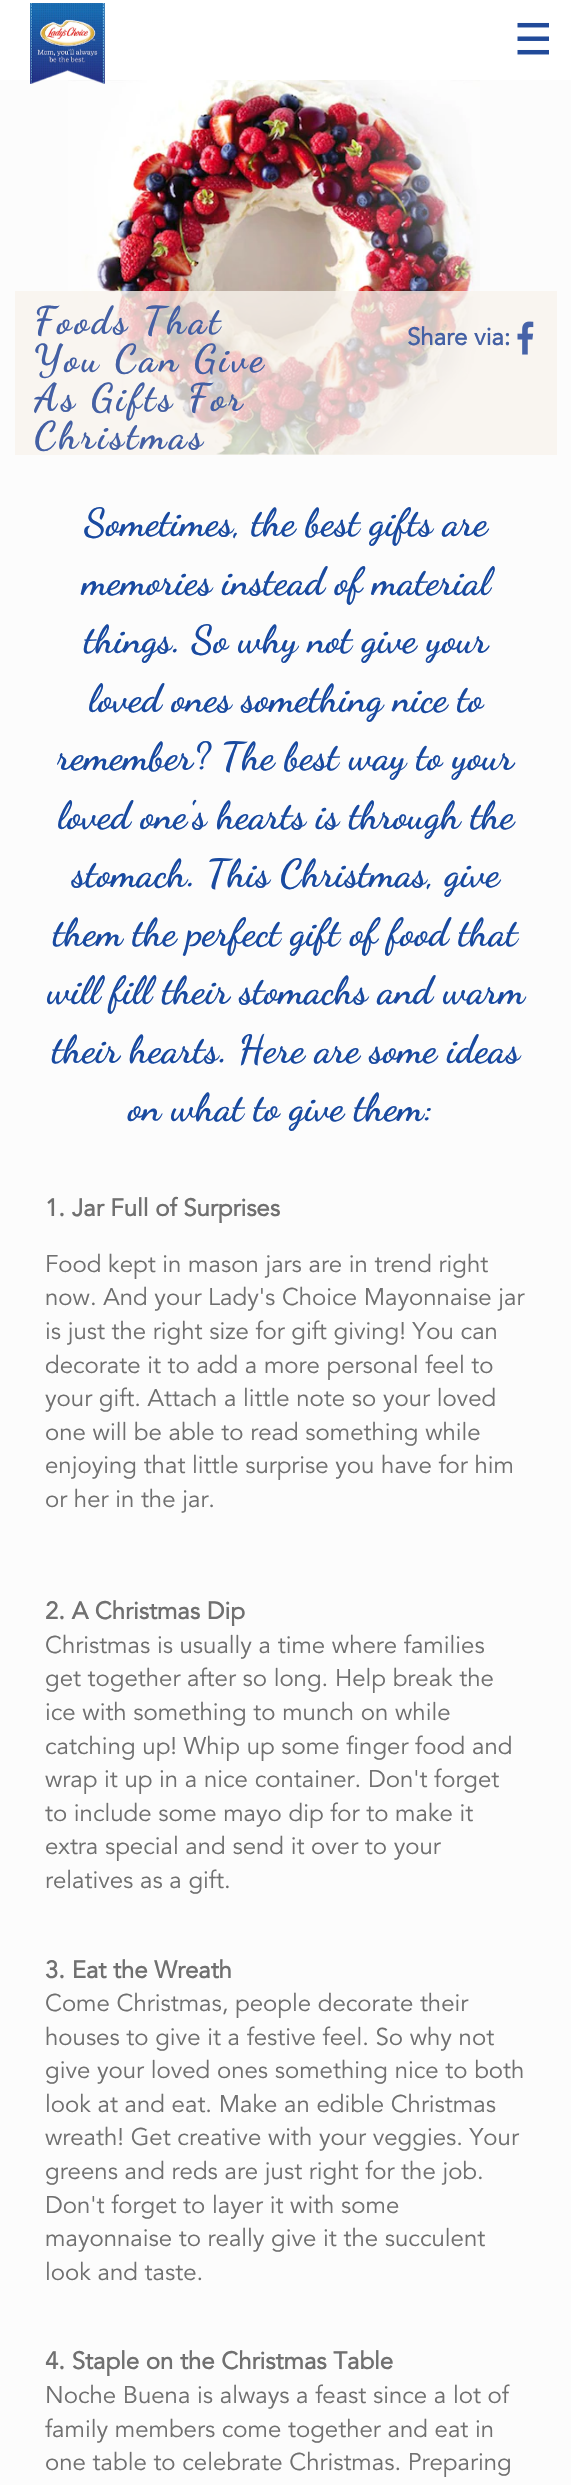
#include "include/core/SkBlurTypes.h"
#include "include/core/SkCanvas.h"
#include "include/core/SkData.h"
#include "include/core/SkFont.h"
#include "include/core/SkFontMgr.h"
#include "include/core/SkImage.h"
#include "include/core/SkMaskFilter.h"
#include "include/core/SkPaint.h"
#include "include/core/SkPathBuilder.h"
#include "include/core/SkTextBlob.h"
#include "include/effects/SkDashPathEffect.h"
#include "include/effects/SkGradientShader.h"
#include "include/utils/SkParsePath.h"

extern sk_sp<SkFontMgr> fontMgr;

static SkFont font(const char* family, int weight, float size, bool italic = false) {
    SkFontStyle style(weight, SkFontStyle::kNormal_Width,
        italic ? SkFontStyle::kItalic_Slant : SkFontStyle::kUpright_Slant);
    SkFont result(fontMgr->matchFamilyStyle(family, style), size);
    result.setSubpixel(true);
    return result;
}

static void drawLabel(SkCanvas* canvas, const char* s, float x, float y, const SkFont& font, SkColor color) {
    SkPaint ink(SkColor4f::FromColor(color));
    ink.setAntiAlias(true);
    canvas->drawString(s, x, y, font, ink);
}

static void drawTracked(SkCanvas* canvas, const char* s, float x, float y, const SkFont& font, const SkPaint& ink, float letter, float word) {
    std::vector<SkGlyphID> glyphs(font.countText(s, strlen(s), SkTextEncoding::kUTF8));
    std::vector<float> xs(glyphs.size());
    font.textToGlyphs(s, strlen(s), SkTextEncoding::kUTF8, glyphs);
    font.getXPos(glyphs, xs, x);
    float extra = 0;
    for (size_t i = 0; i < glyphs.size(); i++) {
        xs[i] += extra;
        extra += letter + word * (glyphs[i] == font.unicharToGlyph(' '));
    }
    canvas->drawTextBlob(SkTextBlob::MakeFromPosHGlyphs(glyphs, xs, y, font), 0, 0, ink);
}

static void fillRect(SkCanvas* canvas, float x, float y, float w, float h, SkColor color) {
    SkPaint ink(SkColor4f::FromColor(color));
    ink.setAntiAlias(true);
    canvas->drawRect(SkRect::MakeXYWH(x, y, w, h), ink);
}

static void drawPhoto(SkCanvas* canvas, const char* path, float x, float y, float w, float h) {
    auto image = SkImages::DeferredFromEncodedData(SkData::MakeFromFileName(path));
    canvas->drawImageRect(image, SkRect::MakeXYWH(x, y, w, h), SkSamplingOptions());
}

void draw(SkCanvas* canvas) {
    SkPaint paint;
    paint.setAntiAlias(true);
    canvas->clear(0xFFFCFCFC);
    fillRect(canvas, 0, 0, 571, 80, 0xFFFFFFFF);
    drawPhoto(canvas, "assets/img3.png", 68, 80, 412, 375);
    drawPhoto(canvas, "assets/img1.png", 30, 3, 75, 81);
    drawPhoto(canvas, "assets/img2.png", 517, 22, 32, 33);
    fillRect(canvas, 15, 291, 542, 164, 0xCCF7F3EC);
    SkFont font1 = font("Dancing Script", 700, 38.5f);
    paint.setColor(0xFF4460A4);
    drawTracked(canvas, "Foods That", 34, 333, font1, paint, 3, 0);
    drawTracked(canvas, "You Can Give", 34, 371, font1, paint, 3, 0);
    drawTracked(canvas, "As Gifts For", 34, 410, font1, paint, 3, 0);
    drawTracked(canvas, "Christmas", 34, 448, font1, paint, 3, 0);
    SkFont font2 = font("Avenir", 700, 24);
    drawLabel(canvas, "Share via:", 407, 345, font2, 0xFF4460A4);
    drawPhoto(canvas, "assets/img4.png", 517, 321, 17, 34);
    SkFont font3 = font("Dancing Script", 700, 39);
    drawLabel(canvas, "Sometimes, the best gifts are", 84, 535, font3, 0xFF194AA0);
    drawLabel(canvas, "memories instead of material", 82, 594, font3, 0xFF194AA0);
    drawLabel(canvas, "things. So why not give your", 84, 652, font3, 0xFF194AA0);
    drawLabel(canvas, "loved ones something nice to", 89, 711, font3, 0xFF194AA0);
    drawLabel(canvas, "remember? The best way to your", 57, 769, font3, 0xFF194AA0);
    drawLabel(canvas, "loved one's hearts is through the", 58, 828, font3, 0xFF194AA0);
    drawLabel(canvas, "stomach. This Christmas, give", 72, 886, font3, 0xFF194AA0);
    drawLabel(canvas, "them the perfect gift of food that", 53, 945, font3, 0xFF194AA0);
    drawLabel(canvas, "will fill their stomachs and warm", 47, 1003, font3, 0xFF194AA0);
    drawLabel(canvas, "their hearts. Here are some ideas", 52, 1062, font3, 0xFF194AA0);
    drawLabel(canvas, "on what to give them:", 128, 1120, font3, 0xFF194AA0);
    drawLabel(canvas, "1. Jar Full of Surprises", 45, 1216, font2, 0xFF707070);
    SkFont font4 = font("Avenir", 400, 24);
    drawLabel(canvas, "Food kept in mason jars are in trend right", 45, 1272, font4, 0xFF707070);
    drawLabel(canvas, "now. And your Lady's Choice Mayonnaise jar", 45, 1305, font4, 0xFF707070);
    drawLabel(canvas, "is just the right size for gift giving! You can", 45, 1339, font4, 0xFF707070);
    drawLabel(canvas, "decorate it to add a more personal feel to", 45, 1373, font4, 0xFF707070);
    drawLabel(canvas, "your gift. Attach a little note so your loved", 45, 1406, font4, 0xFF707070);
    drawLabel(canvas, "one will be able to read something while", 45, 1440, font4, 0xFF707070);
    drawLabel(canvas, "enjoying that little surprise you have for him", 45, 1473, font4, 0xFF707070);
    drawLabel(canvas, "or her in the jar.", 45, 1507, font4, 0xFF707070);
    drawLabel(canvas, "2. A Christmas Dip", 45, 1619, font2, 0xFF707070);
    drawLabel(canvas, "Christmas is usually a time where families", 45, 1653, font4, 0xFF707070);
    drawLabel(canvas, "get together after so long. Help break the", 45, 1686, font4, 0xFF707070);
    drawLabel(canvas, "ice with something to munch on while", 45, 1720, font4, 0xFF707070);
    drawLabel(canvas, "catching up! Whip up some finger food and", 45, 1754, font4, 0xFF707070);
    drawLabel(canvas, "wrap it up in a nice container. Don't forget", 45, 1787, font4, 0xFF707070);
    drawLabel(canvas, "to include some mayo dip for to make it", 45, 1821, font4, 0xFF707070);
    drawLabel(canvas, "extra special and send it over to your", 45, 1854, font4, 0xFF707070);
    drawLabel(canvas, "relatives as a gift.", 45, 1888, font4, 0xFF707070);
    drawLabel(canvas, "3. Eat the Wreath", 45, 1978, font2, 0xFF707070);
    drawLabel(canvas, "Come Christmas, people decorate their", 45, 2011, font4, 0xFF707070);
    drawLabel(canvas, "houses to give it a festive feel. So why not", 45, 2045, font4, 0xFF707070);
    drawLabel(canvas, "give your loved ones something nice to both", 45, 2078, font4, 0xFF707070);
    drawLabel(canvas, "look at and eat. Make an edible Christmas", 45, 2112, font4, 0xFF707070);
    drawLabel(canvas, "wreath! Get creative with your veggies. Your", 45, 2145, font4, 0xFF707070);
    drawLabel(canvas, "greens and reds are just right for the job.", 45, 2179, font4, 0xFF707070);
    drawLabel(canvas, "Don't forget to layer it with some", 45, 2213, font4, 0xFF707070);
    drawLabel(canvas, "mayonnaise to really give it the succulent", 45, 2246, font4, 0xFF707070);
    drawLabel(canvas, "look and taste.", 45, 2280, font4, 0xFF707070);
    drawLabel(canvas, "4. Staple on the Christmas Table", 45, 2369, font2, 0xFF707070);
    drawLabel(canvas, "Noche Buena is always a feast since a lot of", 45, 2403, font4, 0xFF707070);
    drawLabel(canvas, "family members come together and eat in", 45, 2437, font4, 0xFF707070);
    drawLabel(canvas, "one table to celebrate Christmas. Preparing", 45, 2470, font4, 0xFF707070);
}
